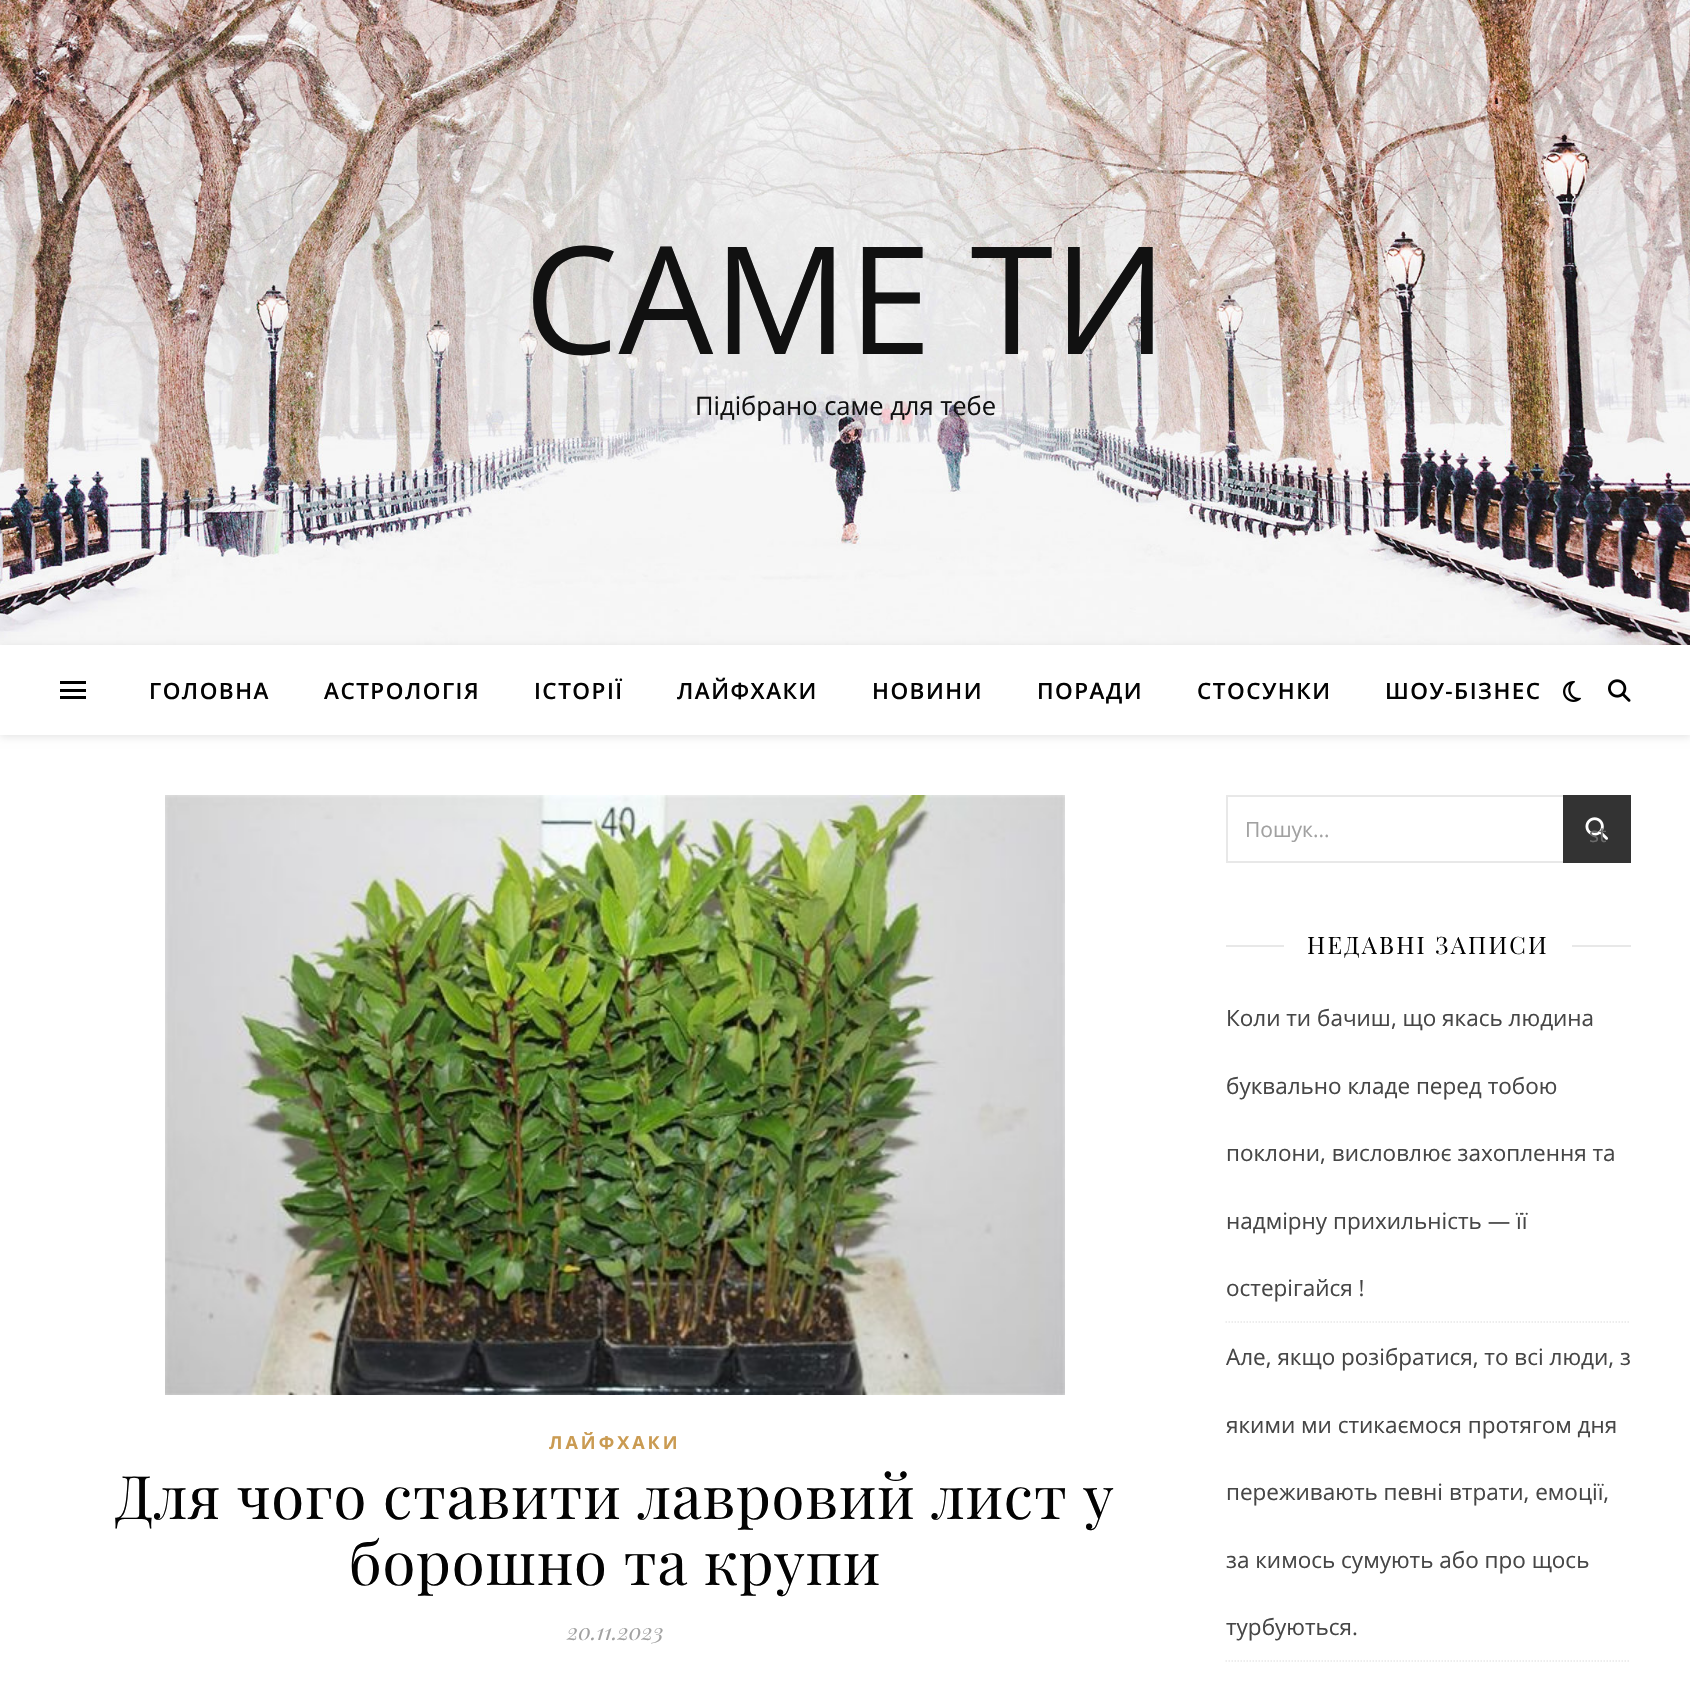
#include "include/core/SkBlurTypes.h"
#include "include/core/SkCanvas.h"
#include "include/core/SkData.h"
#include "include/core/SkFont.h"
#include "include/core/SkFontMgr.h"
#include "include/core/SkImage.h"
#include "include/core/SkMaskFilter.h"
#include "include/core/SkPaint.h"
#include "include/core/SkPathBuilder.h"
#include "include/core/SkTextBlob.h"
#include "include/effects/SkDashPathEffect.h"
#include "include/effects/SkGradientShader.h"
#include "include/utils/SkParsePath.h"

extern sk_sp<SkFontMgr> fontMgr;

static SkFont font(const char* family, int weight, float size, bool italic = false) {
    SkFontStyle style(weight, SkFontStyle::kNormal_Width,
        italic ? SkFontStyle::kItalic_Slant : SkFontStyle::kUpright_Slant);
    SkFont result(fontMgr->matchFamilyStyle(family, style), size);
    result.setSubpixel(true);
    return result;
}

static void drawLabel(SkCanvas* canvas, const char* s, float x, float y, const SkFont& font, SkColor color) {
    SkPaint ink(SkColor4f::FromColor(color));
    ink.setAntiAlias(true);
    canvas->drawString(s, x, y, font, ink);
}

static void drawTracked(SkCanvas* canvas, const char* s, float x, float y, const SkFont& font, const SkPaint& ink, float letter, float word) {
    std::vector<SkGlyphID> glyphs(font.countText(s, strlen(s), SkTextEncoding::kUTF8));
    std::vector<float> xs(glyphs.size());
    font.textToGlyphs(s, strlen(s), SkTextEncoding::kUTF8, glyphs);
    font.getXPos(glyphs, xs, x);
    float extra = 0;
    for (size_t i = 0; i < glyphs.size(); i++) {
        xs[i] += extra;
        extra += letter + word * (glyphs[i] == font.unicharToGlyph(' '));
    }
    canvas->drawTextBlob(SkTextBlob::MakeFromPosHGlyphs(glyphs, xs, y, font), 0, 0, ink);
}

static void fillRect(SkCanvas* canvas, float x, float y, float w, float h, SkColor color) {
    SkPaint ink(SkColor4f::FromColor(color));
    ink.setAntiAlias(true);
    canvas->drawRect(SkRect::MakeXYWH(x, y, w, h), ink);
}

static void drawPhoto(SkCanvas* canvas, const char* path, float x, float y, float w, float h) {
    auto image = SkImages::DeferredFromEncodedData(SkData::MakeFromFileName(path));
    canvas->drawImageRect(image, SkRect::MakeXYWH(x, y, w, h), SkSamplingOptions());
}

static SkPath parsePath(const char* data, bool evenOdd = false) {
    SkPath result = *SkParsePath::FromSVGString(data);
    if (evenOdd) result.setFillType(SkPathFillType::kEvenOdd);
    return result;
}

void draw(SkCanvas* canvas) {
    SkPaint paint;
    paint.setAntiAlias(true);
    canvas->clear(0xFFFFFFFF);
    drawPhoto(canvas, "assets/img1.png", 0, 0, 1690, 645);
    SkFont font1 = font("Open Sans", 400, 150);
    drawLabel(canvas, "САМЕ ТИ", 524, 354, font1, 0xFF111111);
    SkFont font2 = font("Open Sans", 400, 25.5f);
    drawLabel(canvas, "Підібрано саме для тебе", 695, 415, font2, 0xFF111111);
    canvas->save();
    canvas->clipPath(parsePath("M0 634H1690V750H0ZM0 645H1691V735H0Z", true), true);
    paint.setColor(0x1A000000);
    paint.setMaskFilter(SkMaskFilter::MakeBlur(kNormal_SkBlurStyle, 4));
    canvas->drawRect(SkRect::MakeXYWH(0, 647, 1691, 90), paint);
    paint.setMaskFilter(nullptr);
    canvas->restore();
    fillRect(canvas, 60, 681, 26, 3, 0xFF000000);
    fillRect(canvas, 60, 689, 26, 3, 0xFF000000);
    fillRect(canvas, 60, 696, 26, 3, 0xFF000000);
    SkFont font3 = font("Open Sans", 600, 22.5f);
    paint.setColor(0xFF030303);
    drawTracked(canvas, "ГОЛОВНА", 149, 699, font3, paint, 1.5f, 0);
    drawTracked(canvas, "АСТРОЛОГІЯ", 324, 699, font3, paint, 1.5f, 0);
    drawTracked(canvas, "ІСТОРІЇ", 534, 699, font3, paint, 1.5f, 0);
    drawTracked(canvas, "ЛАЙФХАКИ", 677, 699, font3, paint, 1.5f, 0);
    drawTracked(canvas, "НОВИНИ", 872, 699, font3, paint, 1.5f, 0);
    drawTracked(canvas, "ПОРАДИ", 1037, 699, font3, paint, 1.5f, 0);
    drawTracked(canvas, "СТОСУНКИ", 1197, 699, font3, paint, 1.5f, 0);
    drawTracked(canvas, "ШОУ-БІЗНЕС", 1385, 699, font3, paint, 1.5f, 0);
    drawPhoto(canvas, "assets/img2.png", 1563, 681, 18, 21);
    drawPhoto(canvas, "assets/img3.png", 1608, 679, 23, 23);
    drawPhoto(canvas, "assets/img4.png", 165, 795, 900, 600);
    SkFont font4 = font("Open Sans", 700, 18);
    paint.setColor(0xFFCA9B52);
    drawTracked(canvas, "ЛАЙФХАКИ", 549, 1449, font4, paint, 3, 0);
    SkFont font5 = font("Playfair Display", 400, 60);
    paint.setColor(0xFF030303);
    drawTracked(canvas, "Для чого ставити лавровий лист у", 115, 1519, font5, paint, 0.75f, 0);
    drawTracked(canvas, "борошно та крупи", 348, 1585, font5, paint, 0.75f, 0);
    SkFont font6 = font("Playfair Display", 400, 22.5f, true);
    drawLabel(canvas, "20.11.2023", 567, 1640, font6, 0xFFA1A1A1);
    paint.setStroke(true);
    paint.setStrokeWidth(2);
    paint.setColor(0xFFE8E8E8);
    canvas->drawRect(SkRect::MakeXYWH(1227, 796, 403, 66), paint);
    SkFont font7 = font("Open Sans", 400, 21);
    drawLabel(canvas, "Пошук...", 1245, 837, font7, 0xFFA1A1A1);
    fillRect(canvas, 1563, 795, 68, 68, 0xFF333333);
    drawPhoto(canvas, "assets/img5.png", 1585, 817, 23, 23);
    drawLabel(canvas, "st", 1589, 842, font7, 0xFF6A6A6A);
    fillRect(canvas, 1226, 945, 58, 2, 0xFFE8E8E8);
    SkFont font8 = font("Playfair Display", 400, 24);
    paint.setStroke(false);
    paint.setColor(0xFF030303);
    drawTracked(canvas, "НЕДАВНІ ЗАПИСИ", 1307, 954, font8, paint, 2.25f, 0);
    fillRect(canvas, 1572, 945, 59, 2, 0xFFE8E8E8);
    paint.setStroke(true);
    paint.setStrokeWidth(1.5f);
    paint.setColor(0xFFE8E8E8);
    paint.setPathEffect(SkDashPathEffect::Make({{1.5f, 1.5f}}, 0));
    canvas->drawPath(parsePath("M1225.5 1322H1630.5"), paint);
    paint.setPathEffect(nullptr);
    SkFont font9 = font("Open Sans", 400, 22.5f);
    drawLabel(canvas, "Коли ти бачиш, що якась людина", 1226, 1026, font9, 0xFF464646);
    drawLabel(canvas, "буквально кладе перед тобою", 1226, 1094, font9, 0xFF464646);
    drawLabel(canvas, "поклони, висловлює захоплення та", 1226, 1161, font9, 0xFF464646);
    drawLabel(canvas, "надмірну прихильність — її", 1226, 1229, font9, 0xFF464646);
    drawLabel(canvas, "остерігайся !", 1226, 1296, font9, 0xFF464646);
    paint.setPathEffect(SkDashPathEffect::Make({{1.5f, 1.5f}}, 0));
    canvas->drawPath(parsePath("M1225.5 1661H1630.5"), paint);
    paint.setPathEffect(nullptr);
    drawLabel(canvas, "Але, якщо розібратися, то всі люди, з", 1226, 1365, font9, 0xFF464646);
    drawLabel(canvas, "якими ми стикаємося протягом дня", 1226, 1433, font9, 0xFF464646);
    drawLabel(canvas, "переживають певні втрати, емоції,", 1226, 1500, font9, 0xFF464646);
    drawLabel(canvas, "за кимось сумують або про щось", 1226, 1568, font9, 0xFF464646);
    drawLabel(canvas, "турбуються.", 1226, 1635, font9, 0xFF464646);
}
